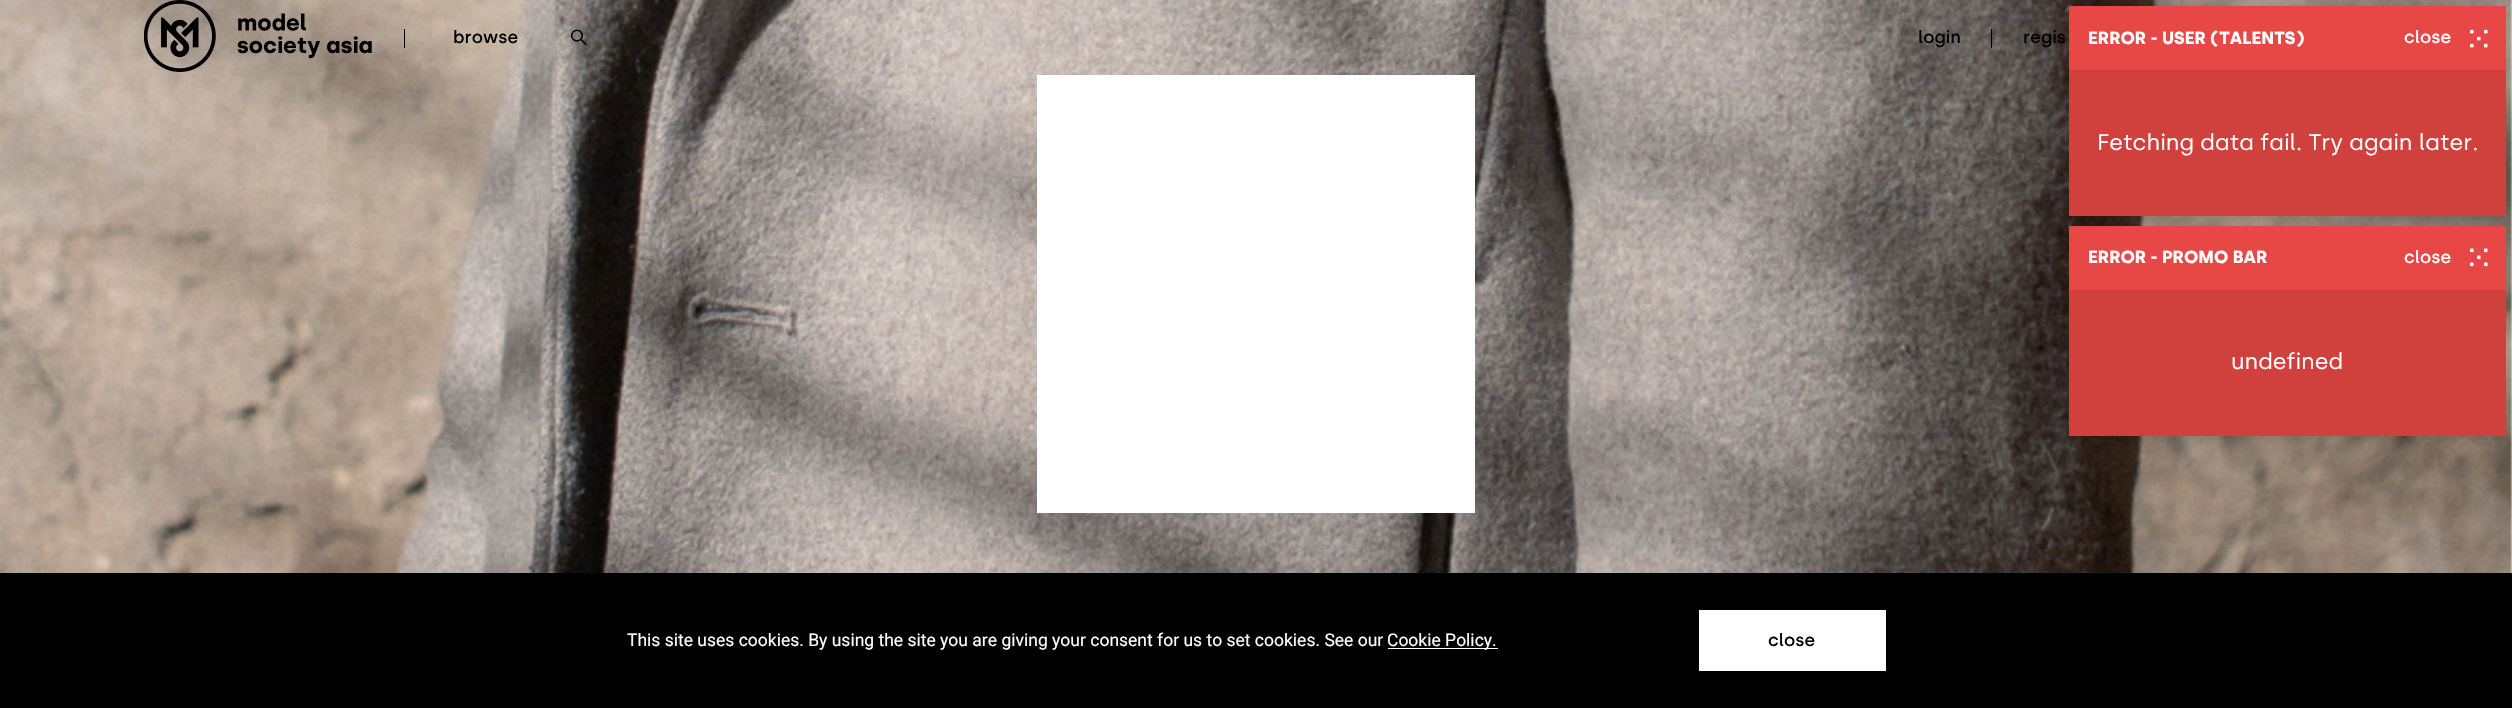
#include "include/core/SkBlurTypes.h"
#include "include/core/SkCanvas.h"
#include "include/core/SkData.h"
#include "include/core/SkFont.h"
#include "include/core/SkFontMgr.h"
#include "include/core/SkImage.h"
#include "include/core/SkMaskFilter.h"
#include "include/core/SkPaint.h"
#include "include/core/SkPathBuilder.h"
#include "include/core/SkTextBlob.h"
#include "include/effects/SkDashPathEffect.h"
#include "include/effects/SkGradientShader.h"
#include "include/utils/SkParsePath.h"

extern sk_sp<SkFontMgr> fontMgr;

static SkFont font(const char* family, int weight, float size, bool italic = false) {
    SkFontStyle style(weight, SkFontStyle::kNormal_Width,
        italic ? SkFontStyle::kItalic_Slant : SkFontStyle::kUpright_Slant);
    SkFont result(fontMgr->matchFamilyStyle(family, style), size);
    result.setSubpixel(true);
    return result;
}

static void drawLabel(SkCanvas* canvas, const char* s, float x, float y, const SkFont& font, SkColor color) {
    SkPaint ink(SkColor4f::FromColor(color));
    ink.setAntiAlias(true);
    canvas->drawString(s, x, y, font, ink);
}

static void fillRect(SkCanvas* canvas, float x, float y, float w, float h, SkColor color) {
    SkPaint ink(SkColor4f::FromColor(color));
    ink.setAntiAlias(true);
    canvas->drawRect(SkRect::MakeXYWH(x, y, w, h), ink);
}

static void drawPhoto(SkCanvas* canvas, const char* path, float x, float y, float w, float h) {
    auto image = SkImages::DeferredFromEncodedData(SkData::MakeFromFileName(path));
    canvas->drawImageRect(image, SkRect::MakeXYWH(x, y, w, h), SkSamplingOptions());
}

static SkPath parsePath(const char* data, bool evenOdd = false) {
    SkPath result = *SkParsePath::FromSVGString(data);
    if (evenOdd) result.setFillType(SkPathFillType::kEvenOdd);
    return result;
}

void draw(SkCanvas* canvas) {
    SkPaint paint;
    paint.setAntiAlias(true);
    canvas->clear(0xFFFFFFFF);
    drawPhoto(canvas, "assets/img1.png", 0, 0, 2512, 573);
    fillRect(canvas, 1037, 75, 438, 438, 0xFFFFFFFF);
    drawPhoto(canvas, "assets/img2.png", 144, 0, 228, 72);
    fillRect(canvas, 404, 29, 1, 19, 0xFF000000);
    SkFont font1 = font("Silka", 500, 17.5f);
    drawLabel(canvas, "browse", 453, 43, font1, 0xFF000000);
    drawPhoto(canvas, "assets/img3.png", 571, 29, 16, 17);
    drawLabel(canvas, "login", 1918, 43, font1, 0xFF000000);
    fillRect(canvas, 1991, 29, 1, 19, 0xFF000000);
    drawLabel(canvas, "regis", 2023, 43, font1, 0xFF000000);
    fillRect(canvas, 0, 573, 2512, 135, 0xFF000000);
    SkFont font2 = font("Roboto", 400, 17.5f);
    drawLabel(canvas, "This site uses cookies. By using the site you are giving your consent for us to set cookies. See our", 627, 646, font2, 0xFFFFFFFF);
    fillRect(canvas, 1388, 648, 110, 1, 0xFFFFFFFF);
    drawLabel(canvas, "Cookie Policy.", 1387, 646, font2, 0xFFFFFFFF);
    fillRect(canvas, 1699, 610, 187, 61, 0xFFFFFFFF);
    drawLabel(canvas, "close", 1768, 646, font1, 0xFF000000);
    paint.setColor(0x1A000000);
    paint.setMaskFilter(SkMaskFilter::MakeBlur(kNormal_SkBlurStyle, 4.5f));
    canvas->drawRect(SkRect::MakeXYWH(2069, 10, 437, 210), paint);
    paint.setMaskFilter(nullptr);
    fillRect(canvas, 2069, 6, 437, 210, 0xFFD0403D);
    paint.setColor(0xFFE84845);
    canvas->drawPath(parsePath("M2071 6H2504C2505 6 2506 7 2506 8V70H2069V8C2069 7 2070 6 2071 6Z"), paint);
    SkFont font3 = font("Silka", 700, 17.5f);
    drawLabel(canvas, "ERROR - USER (TALENTS)", 2088, 44, font3, 0xFFFFFFFF);
    drawLabel(canvas, "close", 2404, 43, font1, 0xFFFFFFFF);
    drawPhoto(canvas, "assets/img4.png", 2470, 29, 18, 19);
    SkFont font4 = font("Silka", 400, 22.5f);
    drawLabel(canvas, "Fetching data fail. Try again later.", 2097, 150, font4, 0xFFFFFFFF);
    paint.setColor(0x1A000000);
    paint.setMaskFilter(SkMaskFilter::MakeBlur(kNormal_SkBlurStyle, 4.5f));
    canvas->drawRect(SkRect::MakeXYWH(2069, 230, 437, 210), paint);
    paint.setMaskFilter(nullptr);
    fillRect(canvas, 2069, 226, 437, 210, 0xFFD0403D);
    paint.setColor(0xFFE84845);
    canvas->drawPath(parsePath("M2071 226H2504C2505 226 2506 227 2506 228V290H2069V228C2069 227 2070 226 2071 226Z"), paint);
    drawLabel(canvas, "ERROR - PROMO BAR", 2088, 263, font3, 0xFFFFFFFF);
    drawLabel(canvas, "close", 2404, 263, font1, 0xFFFFFFFF);
    drawPhoto(canvas, "assets/img5.png", 2470, 248, 18, 19);
    drawLabel(canvas, "undefined", 2231, 369, font4, 0xFFFFFFFF);
}
